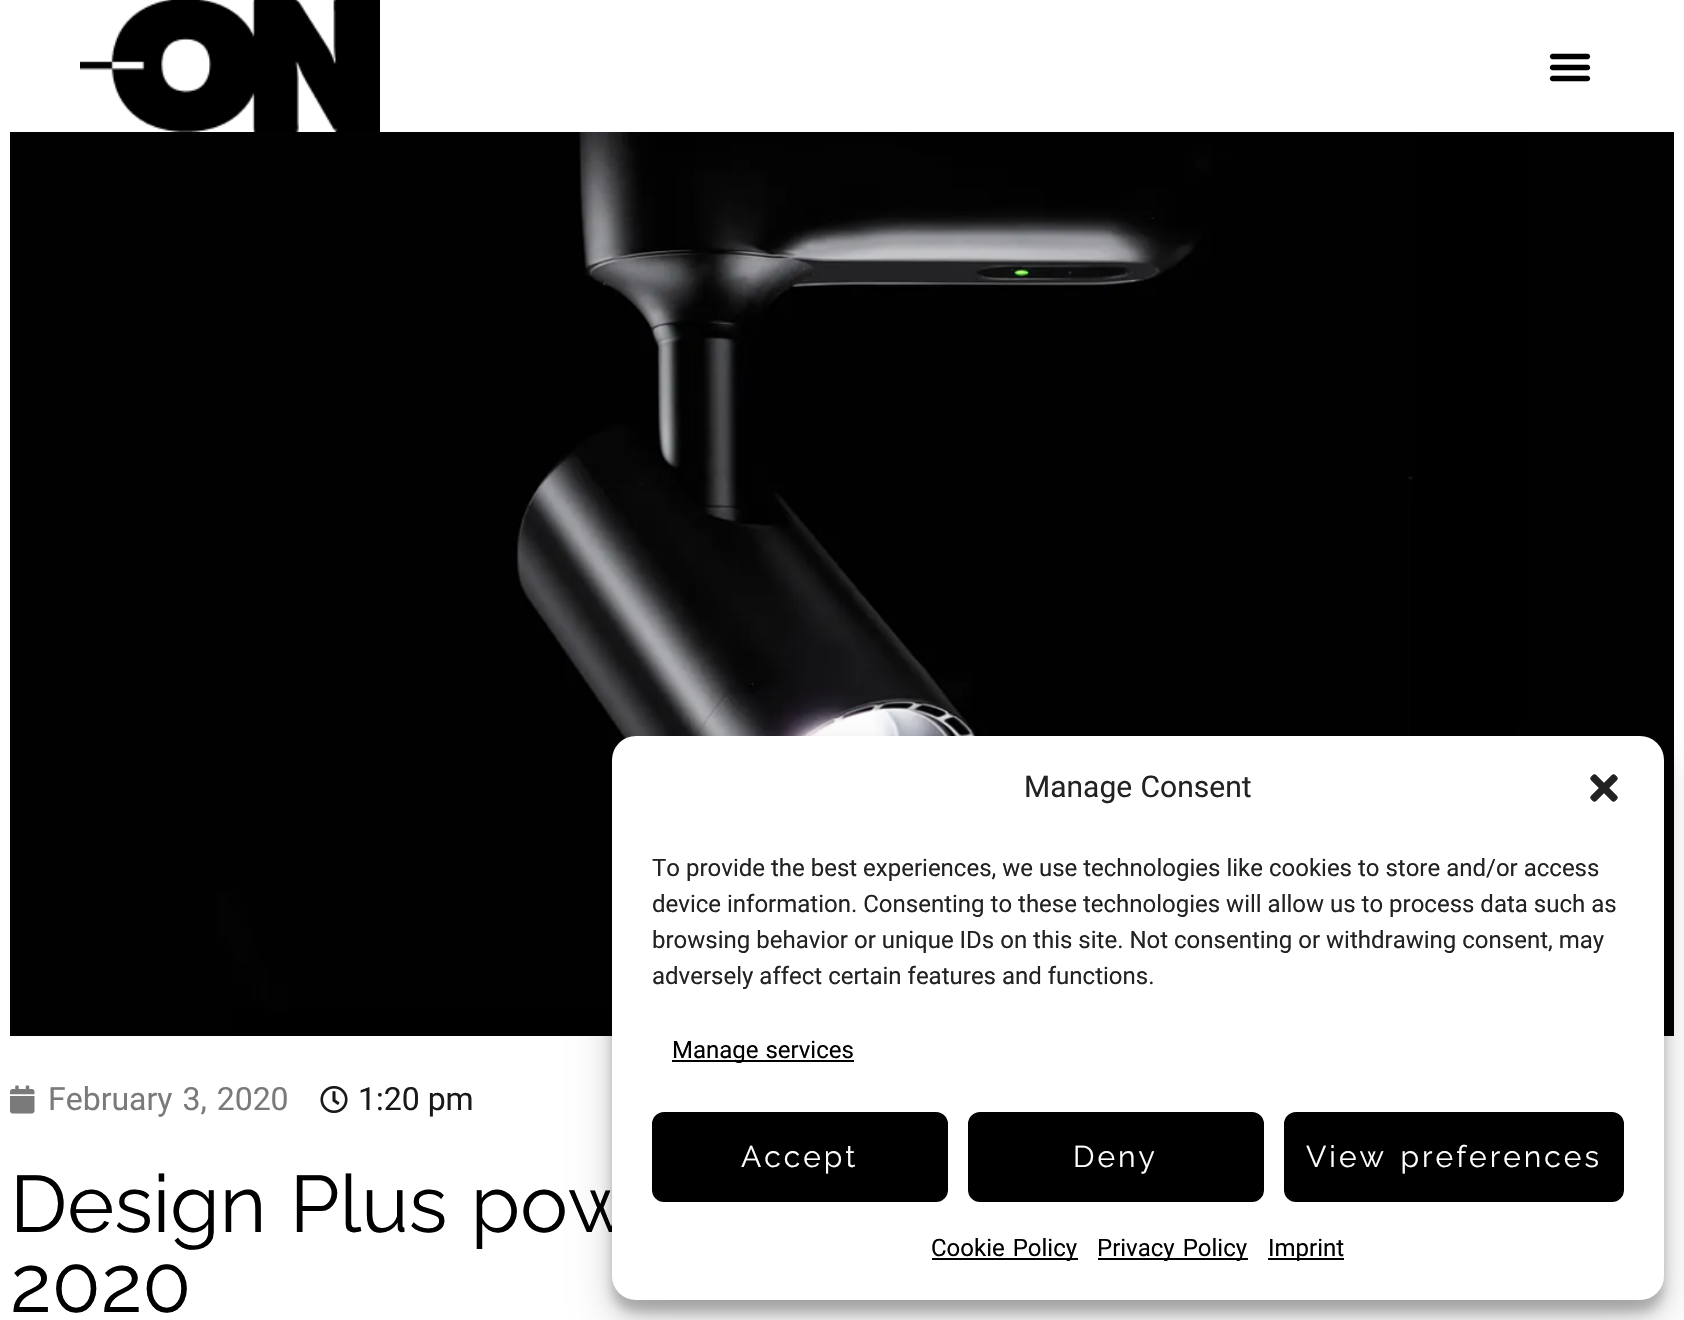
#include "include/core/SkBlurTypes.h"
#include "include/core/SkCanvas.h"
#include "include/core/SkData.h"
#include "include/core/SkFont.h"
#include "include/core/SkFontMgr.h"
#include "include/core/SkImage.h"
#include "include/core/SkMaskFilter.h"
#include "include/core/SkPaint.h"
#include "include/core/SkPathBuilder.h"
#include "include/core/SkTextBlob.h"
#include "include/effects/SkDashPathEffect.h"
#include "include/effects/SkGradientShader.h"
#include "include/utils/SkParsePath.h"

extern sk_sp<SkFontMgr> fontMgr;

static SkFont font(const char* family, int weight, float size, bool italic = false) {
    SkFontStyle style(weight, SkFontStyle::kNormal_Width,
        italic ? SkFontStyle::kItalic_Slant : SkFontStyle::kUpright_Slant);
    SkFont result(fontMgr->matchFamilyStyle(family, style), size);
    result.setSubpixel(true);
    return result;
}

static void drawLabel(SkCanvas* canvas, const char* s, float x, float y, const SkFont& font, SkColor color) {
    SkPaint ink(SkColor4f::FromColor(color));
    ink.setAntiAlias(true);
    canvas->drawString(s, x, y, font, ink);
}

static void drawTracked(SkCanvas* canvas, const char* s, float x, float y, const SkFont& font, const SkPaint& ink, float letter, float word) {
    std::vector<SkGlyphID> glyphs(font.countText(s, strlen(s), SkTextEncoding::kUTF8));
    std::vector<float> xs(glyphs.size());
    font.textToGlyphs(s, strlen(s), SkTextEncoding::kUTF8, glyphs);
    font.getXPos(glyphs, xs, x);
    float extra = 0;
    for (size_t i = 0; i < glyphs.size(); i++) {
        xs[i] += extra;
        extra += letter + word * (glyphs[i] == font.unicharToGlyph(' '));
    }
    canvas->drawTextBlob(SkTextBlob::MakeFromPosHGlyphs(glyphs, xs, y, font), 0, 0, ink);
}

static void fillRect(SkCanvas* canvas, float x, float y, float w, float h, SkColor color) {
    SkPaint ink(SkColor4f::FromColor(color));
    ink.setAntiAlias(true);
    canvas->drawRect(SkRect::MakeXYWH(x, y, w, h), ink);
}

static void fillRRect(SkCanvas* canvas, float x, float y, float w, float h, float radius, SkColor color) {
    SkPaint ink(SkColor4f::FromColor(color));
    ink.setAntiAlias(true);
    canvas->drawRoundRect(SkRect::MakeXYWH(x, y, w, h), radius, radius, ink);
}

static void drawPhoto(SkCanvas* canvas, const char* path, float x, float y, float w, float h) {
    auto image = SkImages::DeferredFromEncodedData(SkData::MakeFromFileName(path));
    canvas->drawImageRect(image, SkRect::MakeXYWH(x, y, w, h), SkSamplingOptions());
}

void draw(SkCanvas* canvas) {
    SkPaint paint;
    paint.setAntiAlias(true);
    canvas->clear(0xFFFFFFFF);
    drawPhoto(canvas, "assets/img1.png", 80, 0, 300, 132);
    drawPhoto(canvas, "assets/img2.png", 1549, 53, 42, 29);
    drawPhoto(canvas, "assets/img3.png", 10, 132, 1664, 904);
    drawPhoto(canvas, "assets/img4.png", 10, 1085, 25, 29);
    SkFont font1 = font("Roboto", 400, 32);
    paint.setColor(0xFF7A7A7A);
    drawTracked(canvas, "February 3, 2020", 48, 1110, font1, paint, 0, 2);
    drawPhoto(canvas, "assets/img5.png", 320, 1086, 28, 27);
    drawLabel(canvas, "1:20 pm", 358, 1110, font1, 0xFF191919);
    SkFont font2 = font("Raleway", 400, 80);
    paint.setColor(0xFF000000);
    drawTracked(canvas, "Design Plus pow", 10, 1232, font2, paint, 0, 3);
    drawLabel(canvas, "2020", 10, 1312, font2, 0xFF000000);
    paint.setColor(0x3B000000);
    paint.setMaskFilter(SkMaskFilter::MakeBlur(kNormal_SkBlurStyle, 6));
    canvas->drawRoundRect(SkRect::MakeXYWH(612, 748, 1052, 564), 24, 24, paint);
    paint.setMaskFilter(nullptr);
    paint.setColor(0x30000000);
    paint.setMaskFilter(SkMaskFilter::MakeBlur(kNormal_SkBlurStyle, 20));
    canvas->drawRoundRect(SkRect::MakeXYWH(612, 756, 1052, 564), 24, 24, paint);
    paint.setMaskFilter(nullptr);
    fillRRect(canvas, 612, 736, 1052, 564, 24, 0xFFFFFFFF);
    SkFont font3 = font("Roboto", 400, 30);
    paint.setColor(0xFF222222);
    drawTracked(canvas, "Manage Consent", 1024, 797, font3, paint, 0, 1);
    drawPhoto(canvas, "assets/img6.png", 1590, 774, 28, 28);
    SkFont font4 = font("Roboto", 400, 24);
    drawLabel(canvas, "To provide the best experiences, we use technologies like cookies to store and/or access", 652, 876, font4, 0xFF222222);
    drawLabel(canvas, "device information. Consenting to these technologies will allow us to process data such as", 652, 912, font4, 0xFF222222);
    drawLabel(canvas, "browsing behavior or unique IDs on this site. Not consenting or withdrawing consent, may", 652, 948, font4, 0xFF222222);
    drawLabel(canvas, "adversely affect certain features and functions.", 652, 984, font4, 0xFF222222);
    fillRect(canvas, 672, 1060, 182, 2, 0xFF000000);
    paint.setColor(0xFF000000);
    drawTracked(canvas, "Manage services", 672, 1058, font4, paint, 0, 1);
    canvas->drawRoundRect(SkRect::MakeXYWH(653, 1113, 294, 88), 11, 11, paint);
    paint.setStroke(true);
    paint.setStrokeWidth(2);
    canvas->drawRoundRect(SkRect::MakeXYWH(653, 1113, 294, 88), 11, 11, paint);
    SkFont font5 = font("Raleway", 400, 30);
    paint.setStroke(false);
    paint.setColor(0xFFFFFFFF);
    drawTracked(canvas, "Accept", 741, 1167, font5, paint, 3, 0);
    paint.setColor(0xFF000000);
    canvas->drawRoundRect(SkRect::MakeXYWH(969, 1113, 294, 88), 11, 11, paint);
    paint.setStroke(true);
    canvas->drawRoundRect(SkRect::MakeXYWH(969, 1113, 294, 88), 11, 11, paint);
    paint.setStroke(false);
    paint.setColor(0xFFFFFFFF);
    drawTracked(canvas, "Deny", 1073, 1167, font5, paint, 3, 0);
    paint.setColor(0xFF000000);
    canvas->drawRoundRect(SkRect::MakeXYWH(1285, 1113, 338, 88), 11, 11, paint);
    paint.setStroke(true);
    canvas->drawRoundRect(SkRect::MakeXYWH(1285, 1113, 338, 88), 11, 11, paint);
    paint.setStroke(false);
    paint.setColor(0xFFFFFFFF);
    drawTracked(canvas, "View preferences", 1306, 1167, font5, paint, 3, 3);
    fillRect(canvas, 932, 1258, 146, 2, 0xFF000000);
    paint.setColor(0xFF000000);
    drawTracked(canvas, "Cookie Policy", 931, 1256, font4, paint, 0, 2);
    fillRect(canvas, 1098, 1258, 150, 2, 0xFF000000);
    drawTracked(canvas, "Privacy Policy", 1097, 1256, font4, paint, 0, 2);
    fillRect(canvas, 1268, 1258, 76, 2, 0xFF000000);
    drawLabel(canvas, "Imprint", 1268, 1256, font4, 0xFF000000);
}
